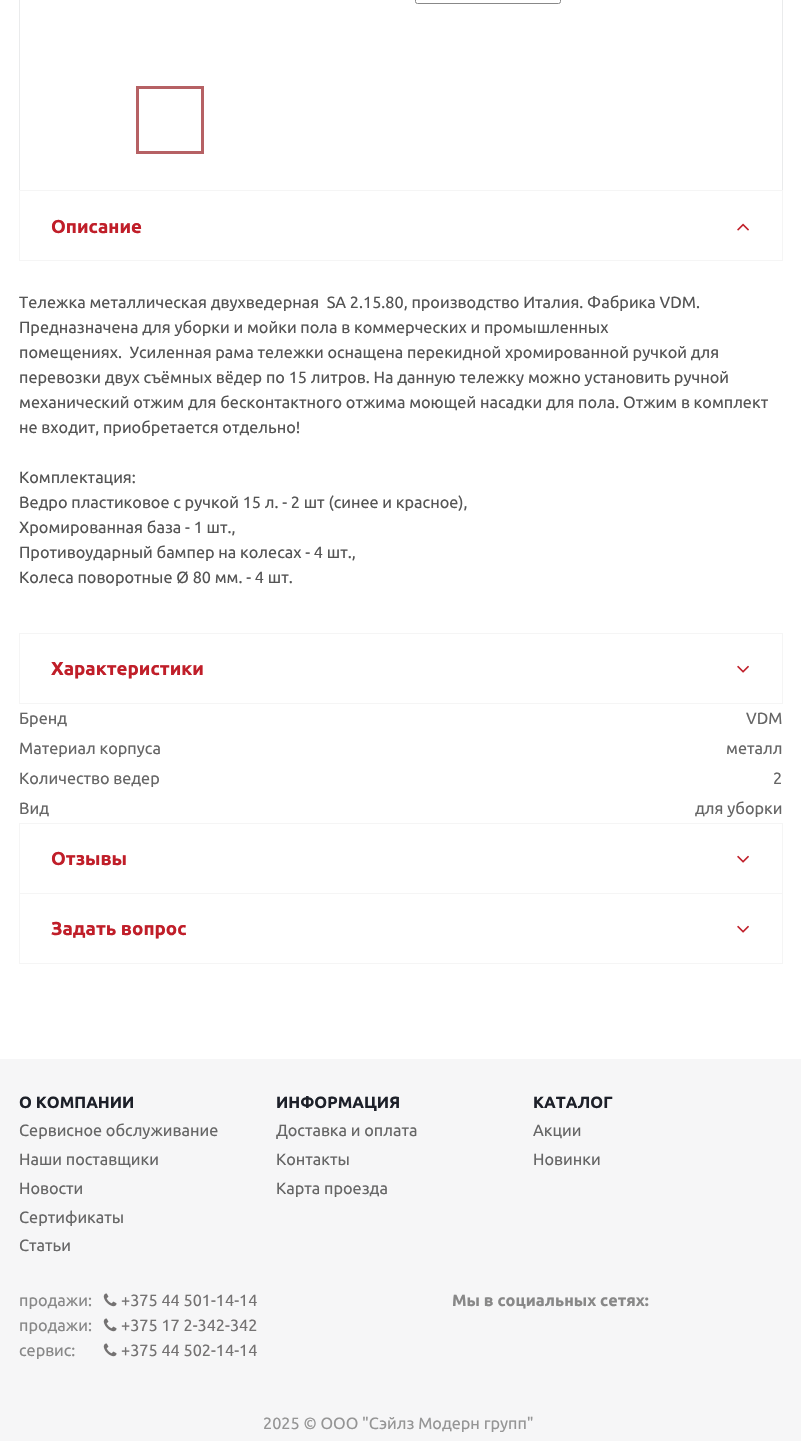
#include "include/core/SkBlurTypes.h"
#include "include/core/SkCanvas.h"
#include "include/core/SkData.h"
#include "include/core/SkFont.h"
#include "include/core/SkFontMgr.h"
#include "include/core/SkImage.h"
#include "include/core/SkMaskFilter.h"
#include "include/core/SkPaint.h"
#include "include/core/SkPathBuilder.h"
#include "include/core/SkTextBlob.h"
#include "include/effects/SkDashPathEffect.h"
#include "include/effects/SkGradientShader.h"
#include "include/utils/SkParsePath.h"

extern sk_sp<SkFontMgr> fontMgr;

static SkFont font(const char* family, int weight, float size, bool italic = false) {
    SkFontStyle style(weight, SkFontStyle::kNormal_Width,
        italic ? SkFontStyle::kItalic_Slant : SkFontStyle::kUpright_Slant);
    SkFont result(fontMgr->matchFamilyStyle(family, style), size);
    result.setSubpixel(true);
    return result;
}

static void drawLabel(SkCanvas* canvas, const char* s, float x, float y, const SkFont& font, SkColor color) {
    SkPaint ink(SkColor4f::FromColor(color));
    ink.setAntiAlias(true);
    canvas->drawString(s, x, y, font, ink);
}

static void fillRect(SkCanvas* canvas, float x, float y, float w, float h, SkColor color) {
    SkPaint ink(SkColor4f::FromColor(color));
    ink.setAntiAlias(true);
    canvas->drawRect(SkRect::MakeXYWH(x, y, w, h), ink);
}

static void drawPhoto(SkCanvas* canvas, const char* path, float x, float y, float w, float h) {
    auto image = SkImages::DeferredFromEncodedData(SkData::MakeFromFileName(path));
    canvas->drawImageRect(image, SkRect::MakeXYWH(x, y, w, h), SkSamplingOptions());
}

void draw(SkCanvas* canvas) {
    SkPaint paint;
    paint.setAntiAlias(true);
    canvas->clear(0xFFF6F6F7);
    fillRect(canvas, 0, 0, 801, 1059, 0xFFFFFFFF);
    paint.setStroke(true);
    paint.setStrokeWidth(1);
    paint.setColor(0xFFEAEBEC);
    canvas->drawRect(SkRect::MakeXYWH(19.5f, -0.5f, 763, 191), paint);
    paint.setColor(0xFF888888);
    canvas->drawRoundRect(SkRect::MakeXYWH(415.5f, -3.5f, 145, 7), 2, 2, paint);
    paint.setStrokeWidth(3);
    paint.setColor(0xFFB66164);
    canvas->drawRect(SkRect::MakeXYWH(137.5f, 87.5f, 65, 65), paint);
    paint.setStrokeWidth(1);
    paint.setColor(0xFFF5F5F5);
    canvas->drawRect(SkRect::MakeXYWH(19.5f, 190.5f, 763, 70), paint);
    SkFont font1 = font("Ubuntu", 700, 18.75f);
    drawLabel(canvas, "Описание", 51, 233, font1, 0xFFC01E29);
    drawPhoto(canvas, "assets/img1.png", 737, 223, 12, 8);
    SkFont font2 = font("Ubuntu", 400, 16.25f);
    drawLabel(canvas, "Тележка металлическая двухведерная  SA 2.15.80, производство Италия. Фабрика VDM.", 19, 308, font2, 0xFF555555);
    drawLabel(canvas, "Предназначена для уборки и мойки пола в коммерческих и промышленных", 19, 333, font2, 0xFF555555);
    drawLabel(canvas, "помещениях.  Усиленная рама тележки оснащена перекидной хромированной ручкой для", 19, 358, font2, 0xFF555555);
    drawLabel(canvas, "перевозки двух съёмных вёдер по 15 литров. На данную тележку можно установить ручной", 19, 383, font2, 0xFF555555);
    drawLabel(canvas, "механический отжим для бесконтактного отжима моющей насадки для пола. Отжим в комплект", 19, 408, font2, 0xFF555555);
    drawLabel(canvas, "не входит, приобретается отдельно!", 19, 433, font2, 0xFF555555);
    drawLabel(canvas, "Комплектация:", 19, 483, font2, 0xFF555555);
    drawLabel(canvas, "Ведро пластиковое с ручкой 15 л. - 2 шт (синее и красное),", 19, 508, font2, 0xFF555555);
    drawLabel(canvas, "Хромированная база - 1 шт.,", 19, 533, font2, 0xFF555555);
    drawLabel(canvas, "Противоударный бампер на колесах - 4 шт.,", 19, 558, font2, 0xFF555555);
    drawLabel(canvas, "Колеса поворотные Ø 80 мм. - 4 шт.", 19, 583, font2, 0xFF555555);
    canvas->drawRect(SkRect::MakeXYWH(19.5f, 633.5f, 763, 70), paint);
    drawLabel(canvas, "Характеристики", 51, 675, font1, 0xFFC01E29);
    drawPhoto(canvas, "assets/img2.png", 737, 665, 12, 8);
    drawLabel(canvas, "Бренд", 19, 724, font2, 0xFF666666);
    drawLabel(canvas, "VDM", 746, 724, font2, 0xFF666666);
    drawLabel(canvas, "Материал корпуса", 19, 754, font2, 0xFF666666);
    drawLabel(canvas, "металл", 726, 754, font2, 0xFF666666);
    drawLabel(canvas, "Количество ведер", 19, 784, font2, 0xFF666666);
    drawLabel(canvas, "2", 773, 784, font2, 0xFF666666);
    drawLabel(canvas, "Вид", 19, 814, font2, 0xFF666666);
    drawLabel(canvas, "для уборки", 695, 814, font2, 0xFF666666);
    canvas->drawRect(SkRect::MakeXYWH(19.5f, 823.5f, 763, 70), paint);
    drawLabel(canvas, "Отзывы", 51, 865, font1, 0xFFC01E29);
    drawPhoto(canvas, "assets/img2.png", 737, 855, 12, 8);
    canvas->drawRect(SkRect::MakeXYWH(19.5f, 893.5f, 763, 70), paint);
    drawLabel(canvas, "Задать вопрос", 51, 935, font1, 0xFFC01E29);
    drawPhoto(canvas, "assets/img2.png", 737, 925, 12, 8);
    SkFont font3 = font("Ubuntu", 700, 16.25f);
    drawLabel(canvas, "О КОМПАНИИ", 19, 1108, font3, 0xFF1D2029);
    drawLabel(canvas, "Сервисное обслуживание", 19, 1136, font2, 0xFF666666);
    drawLabel(canvas, "Наши поставщики", 19, 1165, font2, 0xFF666666);
    drawLabel(canvas, "Новости", 19, 1194, font2, 0xFF666666);
    drawLabel(canvas, "Сертификаты", 19, 1223, font2, 0xFF666666);
    drawLabel(canvas, "Статьи", 19, 1251, font2, 0xFF666666);
    drawLabel(canvas, "ИНФОРМАЦИЯ", 276, 1108, font3, 0xFF1D2029);
    drawLabel(canvas, "Доставка и оплата", 276, 1136, font2, 0xFF666666);
    drawLabel(canvas, "Контакты", 276, 1165, font2, 0xFF666666);
    drawLabel(canvas, "Карта проезда", 276, 1194, font2, 0xFF666666);
    drawLabel(canvas, "КАТАЛОГ", 533, 1108, font3, 0xFF1D2029);
    drawLabel(canvas, "Акции", 533, 1136, font2, 0xFF666666);
    drawLabel(canvas, "Новинки", 533, 1165, font2, 0xFF666666);
    drawLabel(canvas, "продажи:", 19, 1306, font2, 0xFF888888);
    drawPhoto(canvas, "assets/img3.png", 103, 1293, 14, 14);
    drawLabel(canvas, "+375 44 501-14-14", 121, 1306, font2, 0xFF747272);
    drawLabel(canvas, "продажи:", 19, 1331, font2, 0xFF888888);
    drawPhoto(canvas, "assets/img3.png", 103, 1318, 14, 14);
    drawLabel(canvas, "+375 17 2-342-342", 121, 1331, font2, 0xFF747272);
    drawLabel(canvas, "сервис:", 19, 1356, font2, 0xFF888888);
    drawPhoto(canvas, "assets/img3.png", 103, 1343, 14, 14);
    drawLabel(canvas, "+375 44 502-14-14", 121, 1356, font2, 0xFF747272);
    drawLabel(canvas, "Мы в социальных сетях:", 452, 1306, font3, 0xFF888888);
    drawLabel(canvas, "2025 © OOO \"Сэйлз Модерн групп\"", 263, 1429, font2, 0xFF959595);
}
